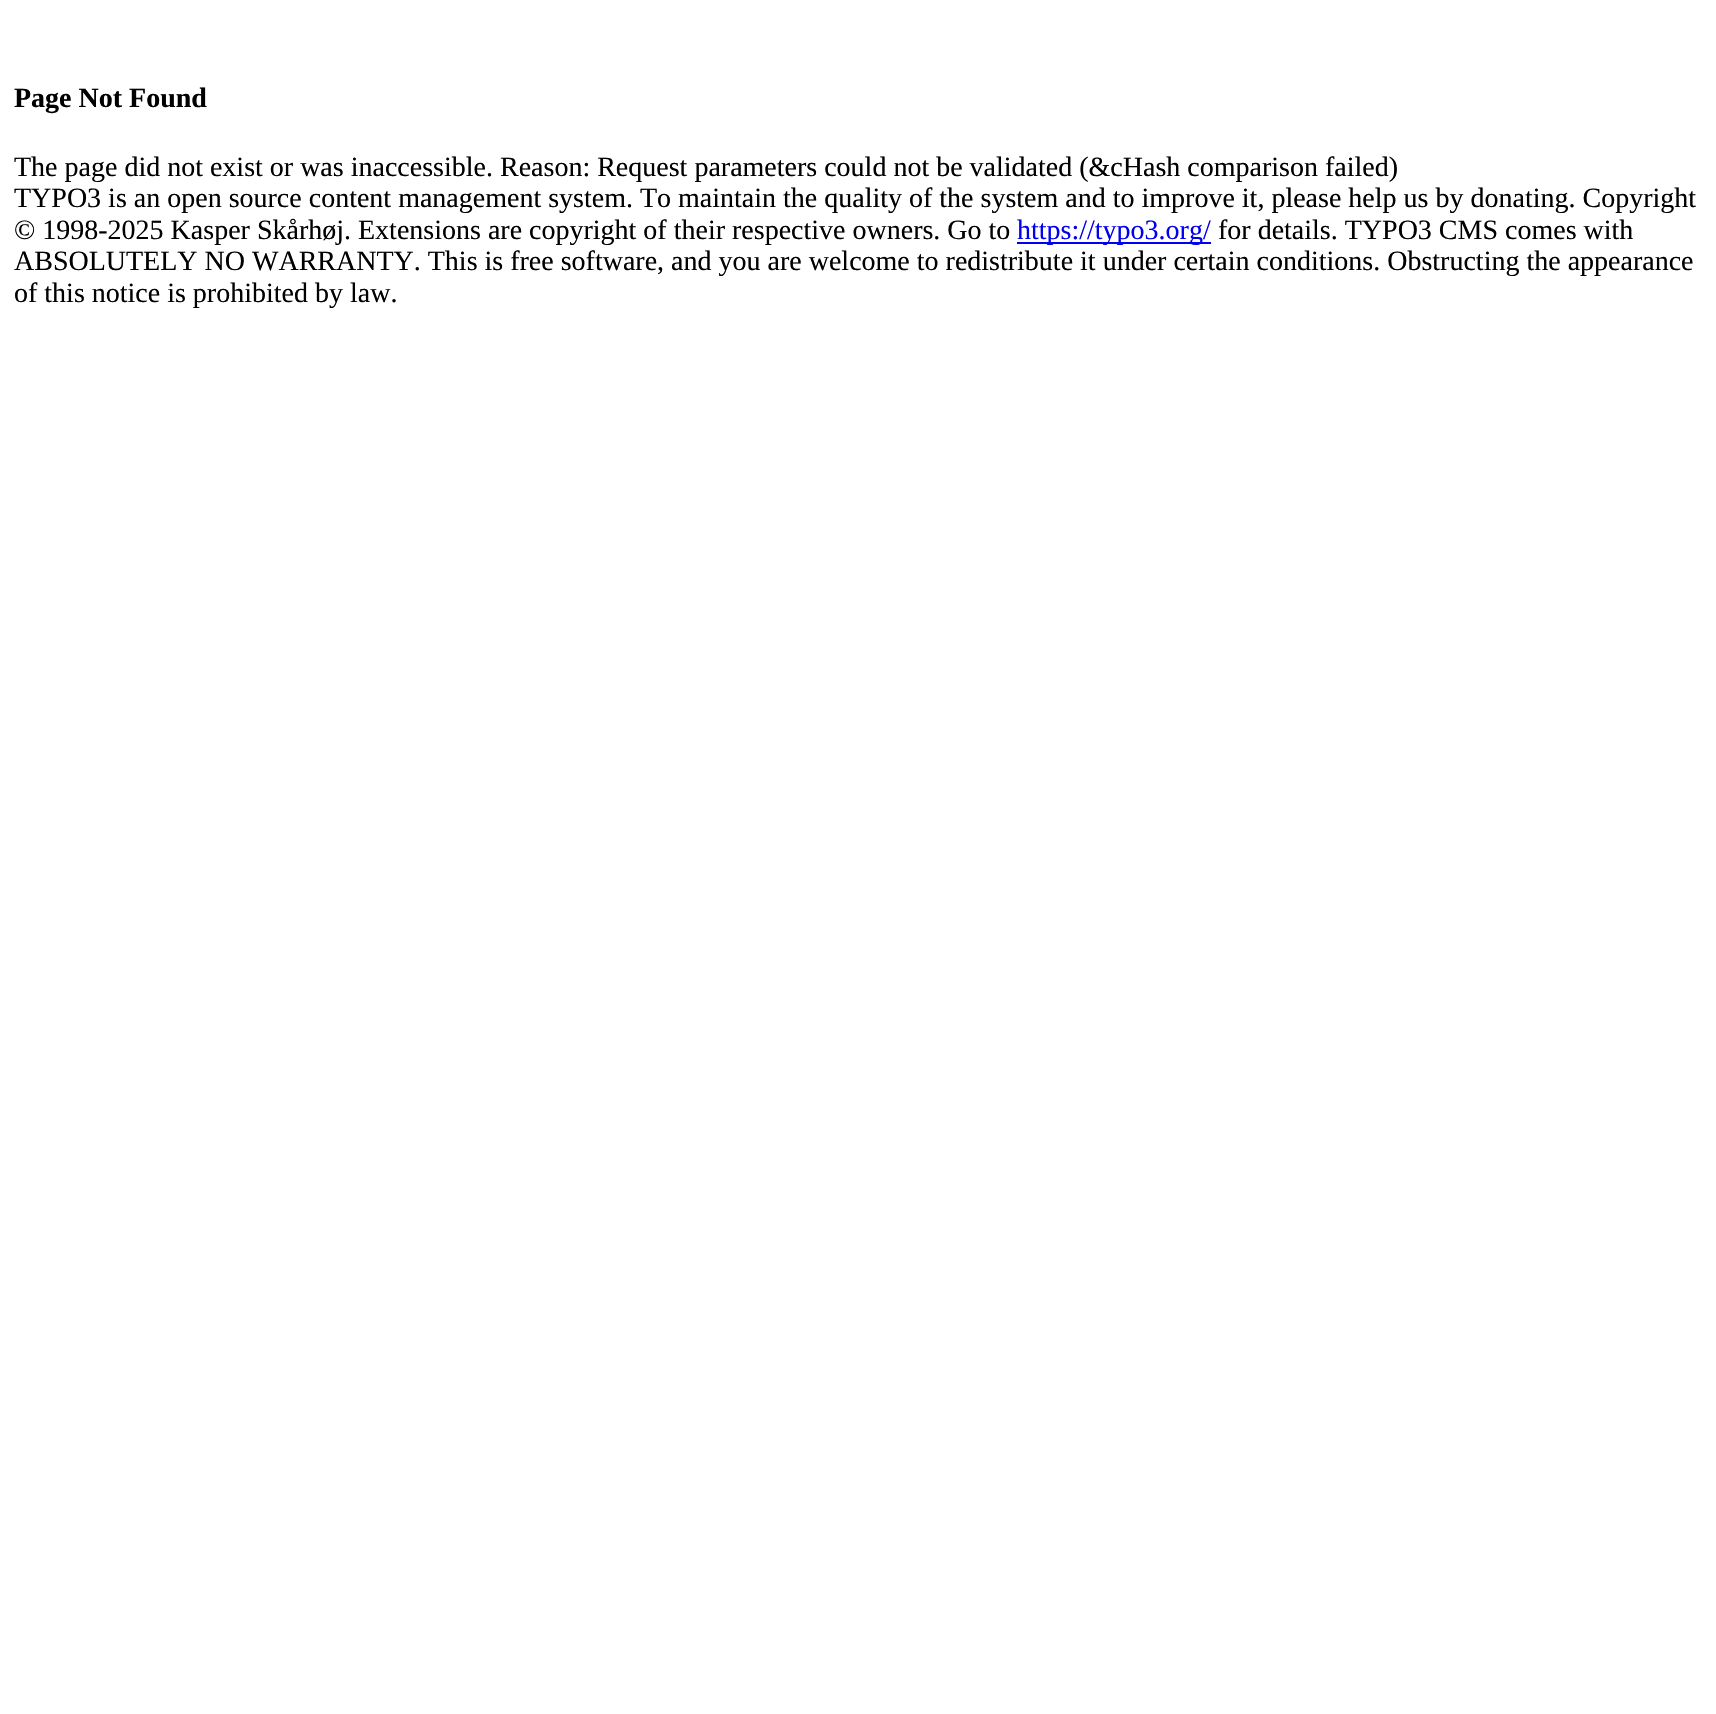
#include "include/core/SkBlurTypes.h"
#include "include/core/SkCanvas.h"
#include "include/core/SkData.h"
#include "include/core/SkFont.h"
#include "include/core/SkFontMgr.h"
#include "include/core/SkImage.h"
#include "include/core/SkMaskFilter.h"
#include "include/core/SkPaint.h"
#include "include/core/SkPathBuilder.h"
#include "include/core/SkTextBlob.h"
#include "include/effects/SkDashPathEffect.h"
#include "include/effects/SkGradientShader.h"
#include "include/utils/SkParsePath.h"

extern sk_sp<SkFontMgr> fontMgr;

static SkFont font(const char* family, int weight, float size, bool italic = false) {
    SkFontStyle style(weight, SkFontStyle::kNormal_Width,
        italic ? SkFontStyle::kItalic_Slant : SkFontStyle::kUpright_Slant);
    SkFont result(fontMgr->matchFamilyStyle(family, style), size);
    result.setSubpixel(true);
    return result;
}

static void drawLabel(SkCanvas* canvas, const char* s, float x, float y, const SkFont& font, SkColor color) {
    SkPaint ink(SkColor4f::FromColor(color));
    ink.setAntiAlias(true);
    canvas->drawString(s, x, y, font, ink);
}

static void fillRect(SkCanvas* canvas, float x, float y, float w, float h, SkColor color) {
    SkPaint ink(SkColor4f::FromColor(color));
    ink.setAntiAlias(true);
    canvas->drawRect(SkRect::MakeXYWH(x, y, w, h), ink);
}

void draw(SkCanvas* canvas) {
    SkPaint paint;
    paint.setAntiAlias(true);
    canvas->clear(0xFFFFFFFF);
    SkFont font1 = font("Liberation Serif", 700, 28);
    drawLabel(canvas, "Page Not Found", 14, 107, font1, 0xFF000000);
    SkFont font2 = font("Liberation Serif", 400, 28);
    drawLabel(canvas, "The page did not exist or was inaccessible. Reason: Request parameters could not be validated (&cHash comparison failed)", 14, 176, font2, 0xFF000000);
    drawLabel(canvas, "TYPO3 is an open source content management system. To maintain the quality of the system and to improve it, please help us by donating. Copyright", 14, 207, font2, 0xFF000000);
    drawLabel(canvas, "© 1998-2025 Kasper Skårhøj. Extensions are copyright of their respective owners. Go to", 14, 239, font2, 0xFF000000);
    fillRect(canvas, 1017, 242, 194, 2, 0xFF0000EE);
    drawLabel(canvas, "https://typo3.org/", 1017, 239, font2, 0xFF0000EE);
    drawLabel(canvas, "for details. TYPO3 CMS comes with", 1218, 239, font2, 0xFF000000);
    drawLabel(canvas, "ABSOLUTELY NO WARRANTY. This is free software, and you are welcome to redistribute it under certain conditions. Obstructing the appearance", 14, 270, font2, 0xFF000000);
    drawLabel(canvas, "of this notice is prohibited by law.", 14, 302, font2, 0xFF000000);
}
